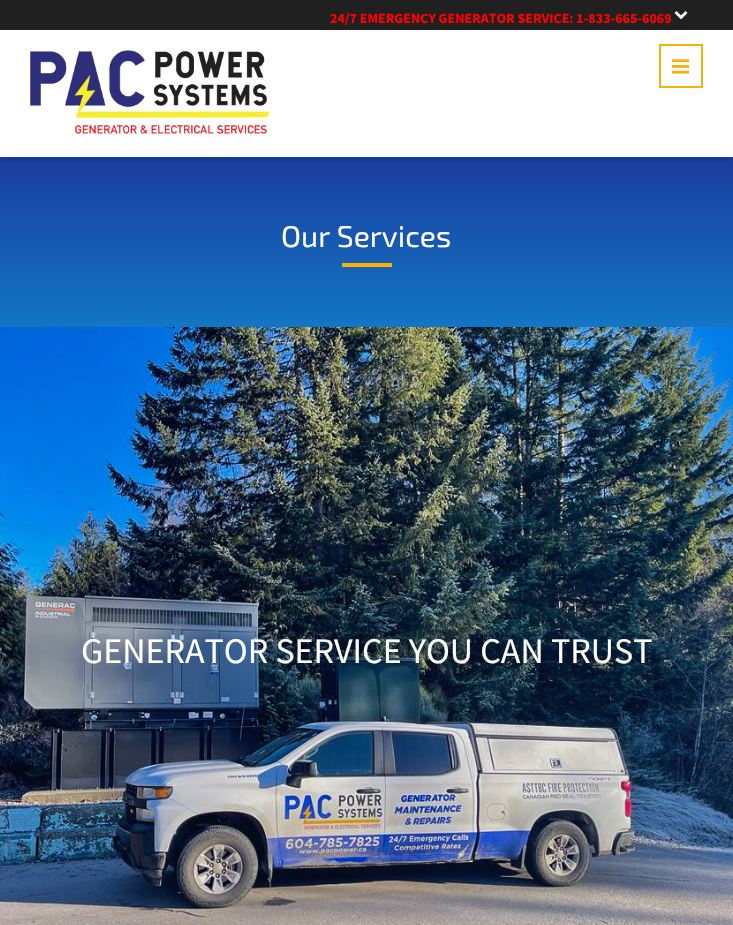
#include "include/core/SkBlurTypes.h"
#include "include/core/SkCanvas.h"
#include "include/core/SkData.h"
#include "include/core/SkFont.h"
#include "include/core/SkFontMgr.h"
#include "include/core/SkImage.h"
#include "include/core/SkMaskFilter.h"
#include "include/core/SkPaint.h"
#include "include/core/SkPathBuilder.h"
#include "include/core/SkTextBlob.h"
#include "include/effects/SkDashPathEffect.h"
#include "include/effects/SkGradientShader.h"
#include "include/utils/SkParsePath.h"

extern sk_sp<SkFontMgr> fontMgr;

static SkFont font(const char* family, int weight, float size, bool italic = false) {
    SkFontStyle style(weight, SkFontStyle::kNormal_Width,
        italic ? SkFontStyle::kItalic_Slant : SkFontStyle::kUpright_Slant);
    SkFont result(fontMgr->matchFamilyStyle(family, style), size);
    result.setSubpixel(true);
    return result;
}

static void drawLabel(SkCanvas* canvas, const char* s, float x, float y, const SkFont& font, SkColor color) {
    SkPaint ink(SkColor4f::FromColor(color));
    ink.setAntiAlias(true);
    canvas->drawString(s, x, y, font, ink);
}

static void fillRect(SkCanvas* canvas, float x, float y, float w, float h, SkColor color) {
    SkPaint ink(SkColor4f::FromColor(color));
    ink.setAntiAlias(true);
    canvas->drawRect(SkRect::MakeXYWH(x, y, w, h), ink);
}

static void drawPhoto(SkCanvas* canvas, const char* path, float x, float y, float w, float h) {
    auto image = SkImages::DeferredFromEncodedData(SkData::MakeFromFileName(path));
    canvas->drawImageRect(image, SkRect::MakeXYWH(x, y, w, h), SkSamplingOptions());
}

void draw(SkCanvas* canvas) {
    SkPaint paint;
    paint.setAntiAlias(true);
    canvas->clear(0xFFFFFFFF);
    {
        const SkColor colors[] = {0xFF193C9D, 0xFF1376C4};
        const float stops[] = {0, 1};
        const SkPoint ends[] = {{367, 157}, {367, 327}};
        paint.setShader(SkGradientShader::MakeLinear(ends, colors, stops, 2, SkTileMode::kClamp));
        paint.setAlpha(255);
    }
    canvas->drawRect(SkRect::MakeXYWH(0, 157, 733, 170), paint);
    canvas->save();
    canvas->clipRect(SkRect::MakeXYWH(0, 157, 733, 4));
    paint.setShader(nullptr);
    paint.setColor(0x1A000000);
    paint.setMaskFilter(SkMaskFilter::MakeBlur(kNormal_SkBlurStyle, 2.5f));
    canvas->drawRect(SkRect::MakeXYWH(0, 32, 733, 127), paint);
    paint.setMaskFilter(nullptr);
    canvas->restore();
    fillRect(canvas, 0, 0, 733, 30, 0xFF202020);
    SkFont font1 = font("Source Sans Pro", 700, 14);
    drawLabel(canvas, "24/7 EMERGENCY GENERATOR SERVICE: 1-833-665-6069", 330, 23, font1, 0xFFFF0000);
    drawPhoto(canvas, "assets/img1.png", 674, 11, 14, 9);
    drawPhoto(canvas, "assets/img2.png", 30, 50, 240, 84);
    paint.setStroke(true);
    paint.setStrokeWidth(2);
    paint.setColor(0xFFF9B109);
    canvas->drawRect(SkRect::MakeXYWH(660, 45, 42, 42), paint);
    drawPhoto(canvas, "assets/img3.png", 672, 59, 18, 15);
    SkFont font2 = font("Exo 2", 400, 30);
    drawLabel(canvas, "Our Services", 281, 247, font2, 0xFFFFFFFF);
    fillRect(canvas, 342, 263, 50, 4, 0xFFF9B109);
    drawPhoto(canvas, "assets/img4.png", 0, 327, 733, 598);
    SkFont font3 = font("Source Sans Pro", 400, 36);
    drawLabel(canvas, "GENERATOR SERVICE YOU CAN TRUST", 81, 663, font3, 0xFFFFFFFF);
}
